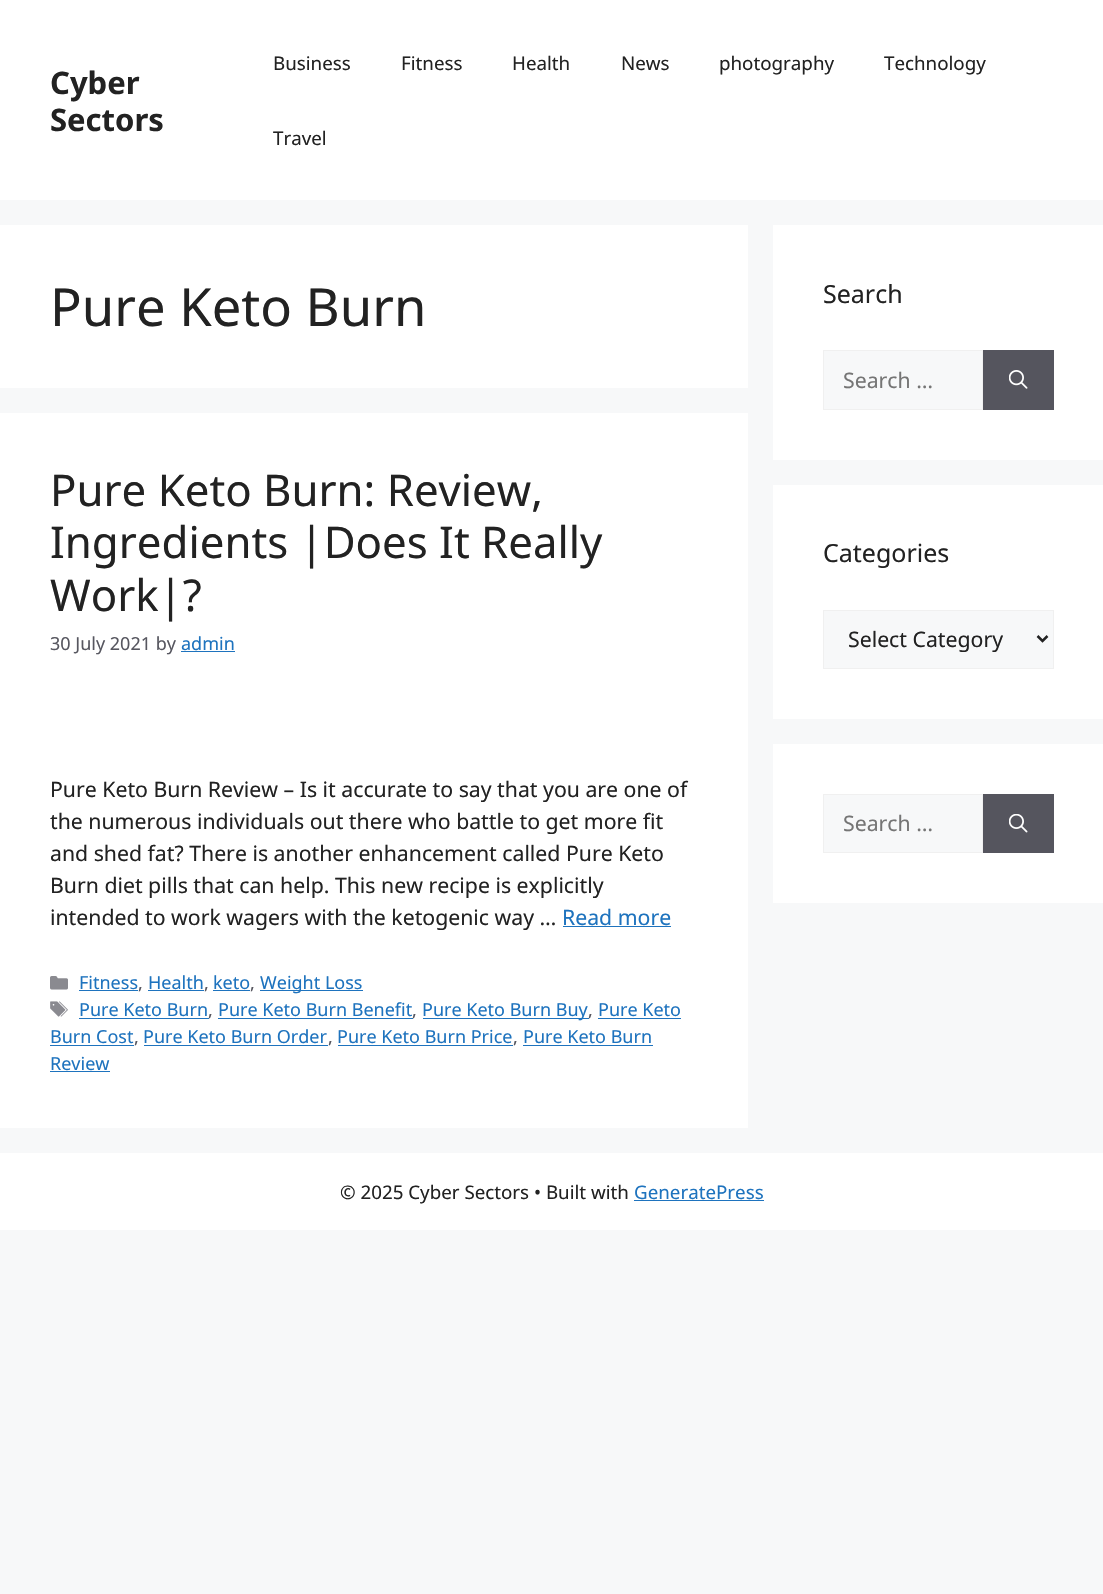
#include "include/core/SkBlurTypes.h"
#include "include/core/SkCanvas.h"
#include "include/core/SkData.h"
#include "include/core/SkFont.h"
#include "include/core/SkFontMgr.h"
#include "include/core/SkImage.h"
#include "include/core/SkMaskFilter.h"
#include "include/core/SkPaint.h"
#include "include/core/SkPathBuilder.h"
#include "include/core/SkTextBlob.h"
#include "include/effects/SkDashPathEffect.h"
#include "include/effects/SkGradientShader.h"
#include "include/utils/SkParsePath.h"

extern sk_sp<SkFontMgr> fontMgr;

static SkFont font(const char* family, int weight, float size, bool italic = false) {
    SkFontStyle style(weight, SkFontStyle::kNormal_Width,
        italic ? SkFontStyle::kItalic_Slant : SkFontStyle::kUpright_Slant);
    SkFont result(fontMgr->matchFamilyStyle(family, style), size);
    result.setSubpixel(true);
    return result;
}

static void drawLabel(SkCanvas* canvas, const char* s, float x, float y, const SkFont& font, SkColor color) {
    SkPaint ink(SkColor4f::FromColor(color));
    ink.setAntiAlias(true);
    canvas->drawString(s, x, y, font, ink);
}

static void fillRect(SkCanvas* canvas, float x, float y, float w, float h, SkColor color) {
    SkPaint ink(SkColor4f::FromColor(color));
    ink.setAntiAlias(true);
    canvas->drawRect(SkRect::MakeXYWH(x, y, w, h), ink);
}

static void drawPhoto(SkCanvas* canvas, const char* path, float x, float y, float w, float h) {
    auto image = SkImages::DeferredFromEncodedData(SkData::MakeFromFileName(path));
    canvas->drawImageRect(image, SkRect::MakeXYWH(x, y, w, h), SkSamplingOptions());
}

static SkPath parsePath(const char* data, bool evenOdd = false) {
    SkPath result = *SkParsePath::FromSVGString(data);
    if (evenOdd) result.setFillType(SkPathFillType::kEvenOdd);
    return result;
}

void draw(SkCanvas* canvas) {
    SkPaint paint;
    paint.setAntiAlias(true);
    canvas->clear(0xFFF7F8F9);
    fillRect(canvas, 0, 0, 1103, 200, 0xFFFFFFFF);
    SkFont font1 = font("Noto Sans", 700, 31);
    drawLabel(canvas, "Cyber", 50, 94, font1, 0xFF222222);
    drawLabel(canvas, "Sectors", 50, 131, font1, 0xFF222222);
    SkFont font2 = font("Noto Sans", 400, 18.75f);
    drawLabel(canvas, "Business", 273, 70, font2, 0xFF222222);
    drawLabel(canvas, "Fitness", 401, 70, font2, 0xFF222222);
    drawLabel(canvas, "Health", 512, 70, font2, 0xFF222222);
    drawLabel(canvas, "News", 621, 70, font2, 0xFF222222);
    drawLabel(canvas, "photography", 719, 70, font2, 0xFF222222);
    drawLabel(canvas, "Technology", 884, 70, font2, 0xFF222222);
    drawLabel(canvas, "Travel", 273, 145, font2, 0xFF222222);
    fillRect(canvas, 0, 225, 748, 163, 0xFFFFFFFF);
    SkFont font3 = font("Noto Sans", 400, 52.5f);
    drawLabel(canvas, "Pure Keto Burn", 50, 326, font3, 0xFF222222);
    fillRect(canvas, 0, 413, 748, 715, 0xFFFFFFFF);
    SkFont font4 = font("Noto Sans", 400, 43.75f);
    drawLabel(canvas, "Pure Keto Burn: Review,", 50, 506, font4, 0xFF222222);
    drawLabel(canvas, "Ingredients |Does It Really", 50, 558, font4, 0xFF222222);
    drawLabel(canvas, "Work|?", 50, 611, font4, 0xFF222222);
    SkFont font5 = font("Noto Sans", 400, 18);
    drawLabel(canvas, "30 July 2021 by", 50, 650, font5, 0xFF575760);
    drawLabel(canvas, "admin", 181, 650, font5, 0xFF1E73BE);
    fillRect(canvas, 181, 651, 54, 1, 0xFF1E73BE);
    SkFont font6 = font("Noto Sans", 400, 21.25f);
    drawLabel(canvas, "Pure Keto Burn Review – Is it accurate to say that you are one of", 50, 797, font6, 0xFF222222);
    drawLabel(canvas, "the numerous individuals out there who battle to get more fit", 50, 829, font6, 0xFF222222);
    drawLabel(canvas, "and shed fat? There is another enhancement called Pure Keto", 50, 861, font6, 0xFF222222);
    drawLabel(canvas, "Burn diet pills that can help. This new recipe is explicitly", 50, 893, font6, 0xFF222222);
    drawLabel(canvas, "intended to work wagers with the ketogenic way …", 50, 925, font6, 0xFF222222);
    drawLabel(canvas, "Read more", 562, 925, font6, 0xFF1E73BE);
    fillRect(canvas, 563, 926, 108, 1, 0xFF1E73BE);
    drawPhoto(canvas, "assets/img1.png", 50, 976, 18, 14);
    drawLabel(canvas, "Fitness", 79, 989, font5, 0xFF1E73BE);
    fillRect(canvas, 79, 990, 59, 1, 0xFF1E73BE);
    drawLabel(canvas, ",", 138, 989, font5, 0xFF575760);
    drawLabel(canvas, "Health", 148, 989, font5, 0xFF1E73BE);
    fillRect(canvas, 148, 990, 56, 1, 0xFF1E73BE);
    drawLabel(canvas, ",", 204, 989, font5, 0xFF575760);
    drawLabel(canvas, "keto", 213, 989, font5, 0xFF1E73BE);
    fillRect(canvas, 213, 990, 37, 1, 0xFF1E73BE);
    drawLabel(canvas, ",", 250, 989, font5, 0xFF575760);
    fillRect(canvas, 260, 990, 103, 1, 0xFF1E73BE);
    drawLabel(canvas, "Weight Loss", 260, 989, font5, 0xFF1E73BE);
    drawPhoto(canvas, "assets/img2.png", 50, 1001, 18, 16);
    drawLabel(canvas, "Pure Keto Burn", 79, 1016, font5, 0xFF1E73BE);
    fillRect(canvas, 79, 1018, 130, 1, 0xFF1E73BE);
    drawLabel(canvas, ",", 208, 1016, font5, 0xFF575760);
    drawLabel(canvas, "Pure Keto Burn Benefit", 218, 1016, font5, 0xFF1E73BE);
    fillRect(canvas, 218, 1018, 195, 1, 0xFF1E73BE);
    drawLabel(canvas, ",", 412, 1016, font5, 0xFF575760);
    fillRect(canvas, 423, 1018, 166, 1, 0xFF1E73BE);
    drawLabel(canvas, "Pure Keto Burn Buy", 422, 1016, font5, 0xFF1E73BE);
    drawLabel(canvas, ",", 588, 1016, font5, 0xFF575760);
    drawLabel(canvas, "Pure Keto", 598, 1016, font5, 0xFF1E73BE);
    fillRect(canvas, 598, 1018, 83, 1, 0xFF1E73BE);
    drawLabel(canvas, "Burn Cost", 50, 1043, font5, 0xFF1E73BE);
    fillRect(canvas, 50, 1045, 84, 1, 0xFF1E73BE);
    drawLabel(canvas, ",", 134, 1043, font5, 0xFF575760);
    drawLabel(canvas, "Pure Keto Burn Order", 143, 1043, font5, 0xFF1E73BE);
    fillRect(canvas, 144, 1045, 184, 1, 0xFF1E73BE);
    drawLabel(canvas, ",", 328, 1043, font5, 0xFF575760);
    drawLabel(canvas, "Pure Keto Burn Price", 337, 1043, font5, 0xFF1E73BE);
    fillRect(canvas, 338, 1045, 175, 1, 0xFF1E73BE);
    drawLabel(canvas, ",", 513, 1043, font5, 0xFF575760);
    drawLabel(canvas, "Pure Keto Burn", 523, 1043, font5, 0xFF1E73BE);
    fillRect(canvas, 523, 1045, 130, 1, 0xFF1E73BE);
    drawLabel(canvas, "Review", 50, 1070, font5, 0xFF1E73BE);
    fillRect(canvas, 50, 1071, 60, 1, 0xFF1E73BE);
    fillRect(canvas, 773, 225, 330, 235, 0xFFFFFFFF);
    SkFont font7 = font("Noto Sans", 400, 25);
    drawLabel(canvas, "Search", 823, 303, font7, 0xFF222222);
    paint.setColor(0xFFF7F8F9);
    canvas->drawRect(SkRect::MakeXYWH(823.5f, 350.5f, 159, 59), paint);
    paint.setStroke(true);
    paint.setStrokeWidth(1);
    paint.setColor(0xFFF0F0F0);
    canvas->drawRect(SkRect::MakeXYWH(823.5f, 350.5f, 159, 59), paint);
    drawLabel(canvas, "Search …", 843, 388, font6, 0xFF757575);
    fillRect(canvas, 983, 350, 71, 60, 0xFF55555E);
    drawPhoto(canvas, "assets/img3.png", 1009, 370, 19, 19);
    fillRect(canvas, 773, 485, 330, 234, 0xFFFFFFFF);
    drawLabel(canvas, "Categories", 823, 562, font7, 0xFF222222);
    paint.setStroke(false);
    paint.setColor(0xFFF7F8F9);
    canvas->drawRect(SkRect::MakeXYWH(823.5f, 610.5f, 230, 58), paint);
    paint.setStroke(true);
    paint.setColor(0xFFF0F0F0);
    canvas->drawRect(SkRect::MakeXYWH(823.5f, 610.5f, 230, 58), paint);
    paint.setStrokeWidth(2.5f);
    paint.setColor(0xFF222222);
    canvas->drawPath(parsePath("M1037.5 636L1042.5 641L1047.5 636"), paint);
    drawLabel(canvas, "Select Category", 848, 647, font6, 0xFF222222);
    fillRect(canvas, 773, 744, 330, 159, 0xFFFFFFFF);
    paint.setStroke(false);
    paint.setColor(0xFFF7F8F9);
    canvas->drawRect(SkRect::MakeXYWH(823.5f, 794.5f, 159, 58), paint);
    paint.setStroke(true);
    paint.setStrokeWidth(1);
    paint.setColor(0xFFF0F0F0);
    canvas->drawRect(SkRect::MakeXYWH(823.5f, 794.5f, 159, 58), paint);
    drawLabel(canvas, "Search …", 843, 831, font6, 0xFF757575);
    fillRect(canvas, 983, 794, 71, 59, 0xFF55555E);
    drawPhoto(canvas, "assets/img4.png", 1009, 814, 19, 19);
    fillRect(canvas, 0, 1153, 1103, 77, 0xFFFFFFFF);
    drawLabel(canvas, "© 2025 Cyber Sectors • Built with", 340, 1199, font2, 0xFF222222);
    drawLabel(canvas, "GeneratePress", 634, 1199, font2, 0xFF1E73BE);
    fillRect(canvas, 634, 1200, 130, 1, 0xFF1E73BE);
}
